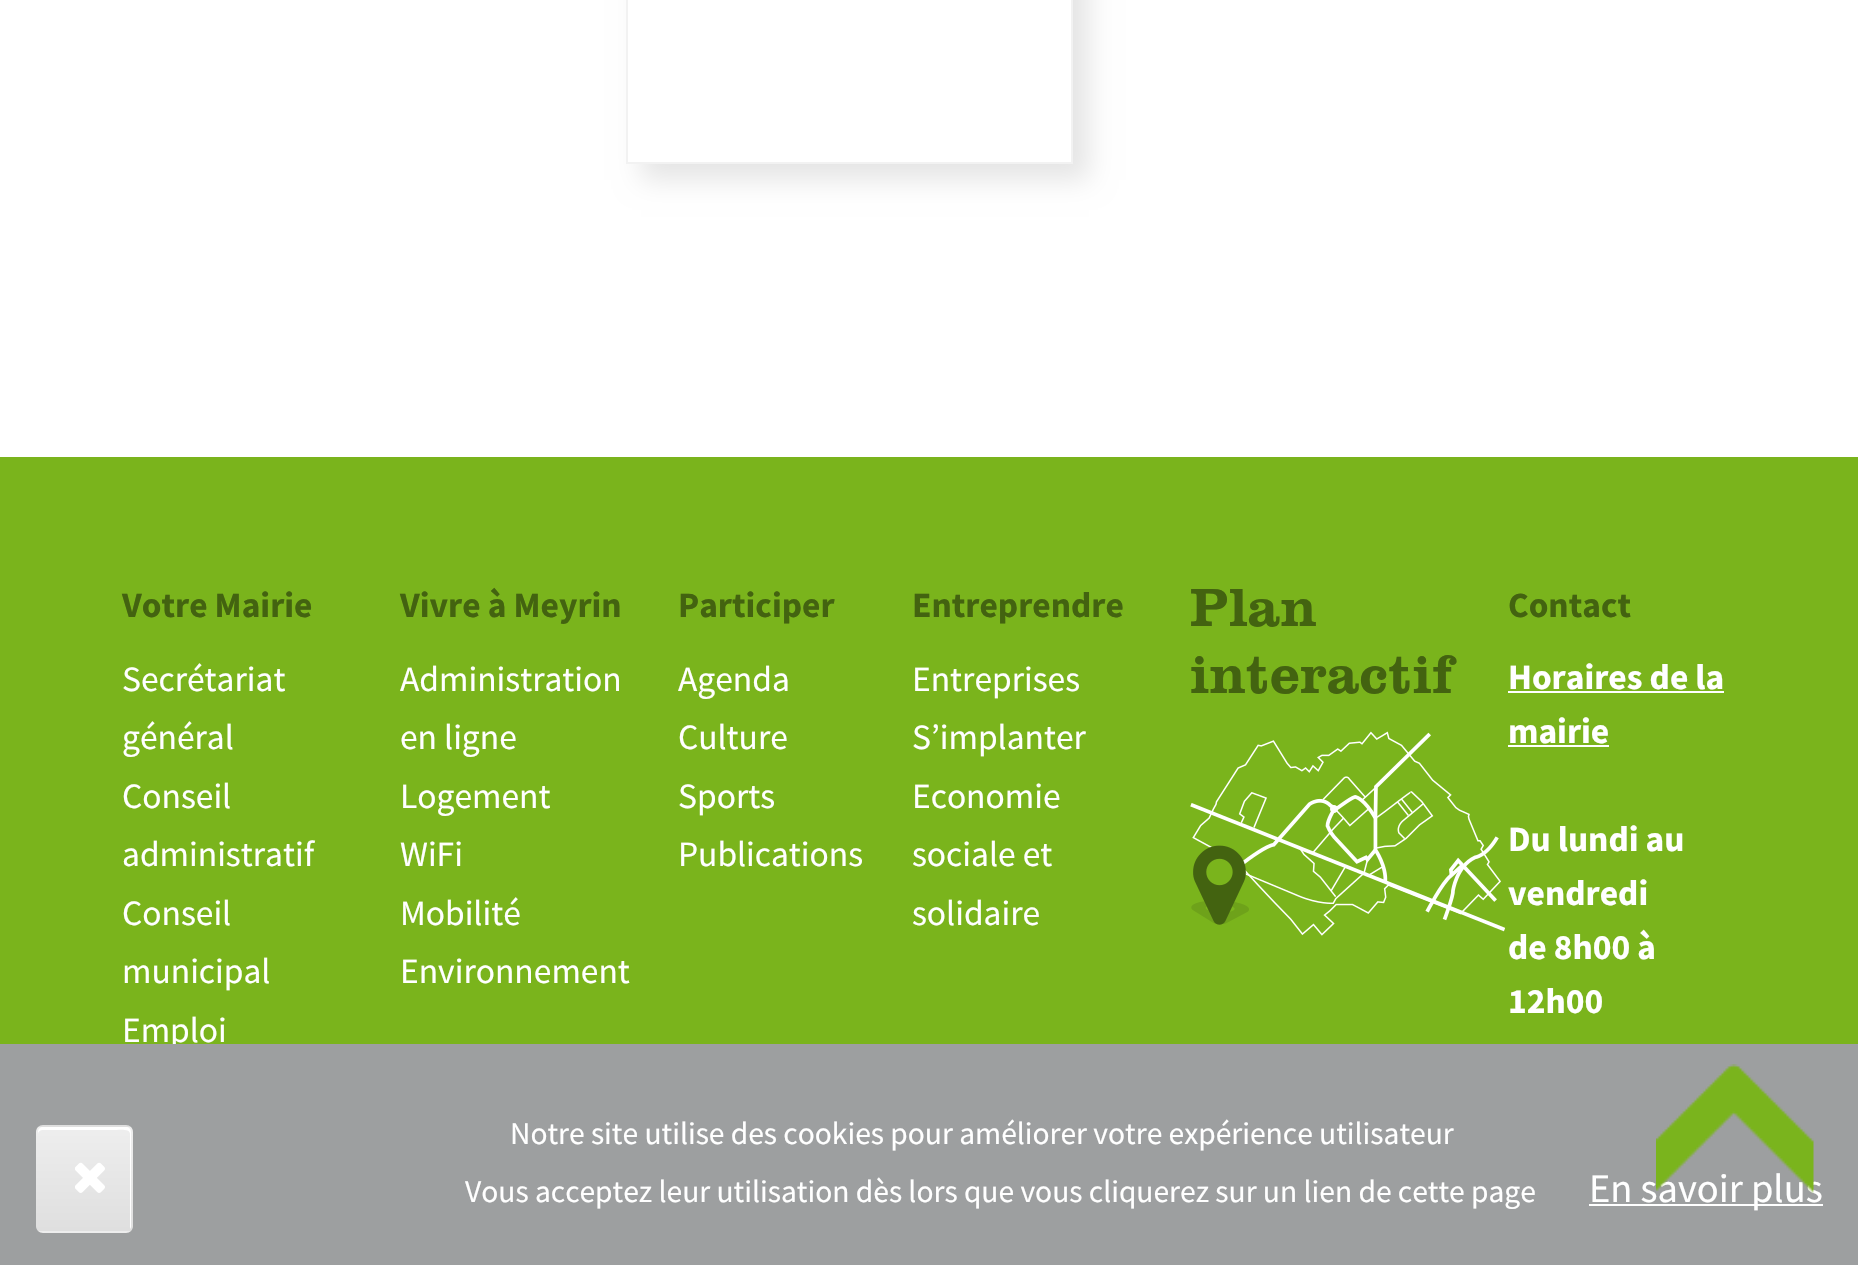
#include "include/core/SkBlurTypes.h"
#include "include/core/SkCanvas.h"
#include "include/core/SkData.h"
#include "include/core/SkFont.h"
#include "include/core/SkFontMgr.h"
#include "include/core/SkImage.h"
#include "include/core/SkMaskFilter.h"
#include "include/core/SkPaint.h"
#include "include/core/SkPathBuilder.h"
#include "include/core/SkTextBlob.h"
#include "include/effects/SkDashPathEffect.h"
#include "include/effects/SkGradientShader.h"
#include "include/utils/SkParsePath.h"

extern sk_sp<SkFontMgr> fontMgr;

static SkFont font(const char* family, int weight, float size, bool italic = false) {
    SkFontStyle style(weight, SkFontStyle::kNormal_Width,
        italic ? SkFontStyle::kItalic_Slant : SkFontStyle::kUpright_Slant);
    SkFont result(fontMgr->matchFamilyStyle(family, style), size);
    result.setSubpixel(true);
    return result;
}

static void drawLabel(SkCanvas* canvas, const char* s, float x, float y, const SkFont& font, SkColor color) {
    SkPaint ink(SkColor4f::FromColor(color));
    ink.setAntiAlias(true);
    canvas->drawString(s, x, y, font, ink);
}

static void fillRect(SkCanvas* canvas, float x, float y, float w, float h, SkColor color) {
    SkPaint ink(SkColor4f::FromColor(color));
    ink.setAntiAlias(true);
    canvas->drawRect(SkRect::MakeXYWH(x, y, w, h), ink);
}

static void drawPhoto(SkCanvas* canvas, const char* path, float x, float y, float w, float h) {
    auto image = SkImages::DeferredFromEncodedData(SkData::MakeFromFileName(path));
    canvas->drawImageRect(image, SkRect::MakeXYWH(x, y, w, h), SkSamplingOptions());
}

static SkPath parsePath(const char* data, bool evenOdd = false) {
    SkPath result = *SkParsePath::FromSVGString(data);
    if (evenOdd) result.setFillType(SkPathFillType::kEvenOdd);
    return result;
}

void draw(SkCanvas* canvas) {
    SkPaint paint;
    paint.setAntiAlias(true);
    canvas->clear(0xFFFFFFFF);
    canvas->save();
    canvas->clipPath(parsePath("M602 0H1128V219H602ZM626-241H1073V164H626Z", true), true);
    paint.setColor(0x1A000000);
    paint.setMaskFilter(SkMaskFilter::MakeBlur(kNormal_SkBlurStyle, 12.5f));
    canvas->drawRect(SkRect::MakeXYWH(641, -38, 448, 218), paint);
    paint.setMaskFilter(nullptr);
    canvas->restore();
    paint.setStroke(true);
    paint.setStrokeWidth(2);
    paint.setColor(0xFFF2F2F2);
    canvas->drawRect(SkRect::MakeXYWH(627, -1, 445, 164), paint);
    fillRect(canvas, 0, 457, 1858, 587, 0xFF7AB41C);
    SkFont font1 = font("Source Sans Pro", 700, 35.5f);
    drawLabel(canvas, "Votre Mairie", 122, 617, font1, 0xFF436310);
    SkFont font2 = font("Source Sans Pro", 400, 35.5f);
    drawLabel(canvas, "Secrétariat", 122, 691, font2, 0xFFFFFFFF);
    drawLabel(canvas, "général", 122, 749, font2, 0xFFFFFFFF);
    drawLabel(canvas, "Conseil", 122, 808, font2, 0xFFFFFFFF);
    drawLabel(canvas, "administratif", 122, 866, font2, 0xFFFFFFFF);
    drawLabel(canvas, "Conseil", 122, 925, font2, 0xFFFFFFFF);
    drawLabel(canvas, "municipal", 122, 983, font2, 0xFFFFFFFF);
    drawLabel(canvas, "Emploi", 122, 1042, font2, 0xFFFFFFFF);
    drawLabel(canvas, "Vivre à Meyrin", 400, 617, font1, 0xFF436310);
    drawLabel(canvas, "Administration", 400, 691, font2, 0xFFFFFFFF);
    drawLabel(canvas, "en ligne", 400, 749, font2, 0xFFFFFFFF);
    drawLabel(canvas, "Logement", 400, 808, font2, 0xFFFFFFFF);
    drawLabel(canvas, "WiFi", 400, 866, font2, 0xFFFFFFFF);
    drawLabel(canvas, "Mobilité", 400, 925, font2, 0xFFFFFFFF);
    drawLabel(canvas, "Environnement", 400, 983, font2, 0xFFFFFFFF);
    drawLabel(canvas, "Participer", 678, 617, font1, 0xFF436310);
    drawLabel(canvas, "Agenda", 678, 691, font2, 0xFFFFFFFF);
    drawLabel(canvas, "Culture", 678, 749, font2, 0xFFFFFFFF);
    drawLabel(canvas, "Sports", 678, 808, font2, 0xFFFFFFFF);
    drawLabel(canvas, "Publications", 678, 866, font2, 0xFFFFFFFF);
    drawLabel(canvas, "Entreprendre", 912, 617, font1, 0xFF436310);
    drawLabel(canvas, "Entreprises", 912, 691, font2, 0xFFFFFFFF);
    drawLabel(canvas, "S’implanter", 912, 749, font2, 0xFFFFFFFF);
    drawLabel(canvas, "Economie", 912, 808, font2, 0xFFFFFFFF);
    drawLabel(canvas, "sociale et", 912, 866, font2, 0xFFFFFFFF);
    drawLabel(canvas, "solidaire", 912, 925, font2, 0xFFFFFFFF);
    SkFont font3 = font("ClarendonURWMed", 400, 55.5f);
    drawLabel(canvas, "Plan", 1190, 626, font3, 0xFF436310);
    drawLabel(canvas, "interactif", 1190, 693, font3, 0xFF436310);
    drawPhoto(canvas, "assets/img1.png", 1190, 731, 315, 205);
    drawLabel(canvas, "Contact", 1508, 617, font1, 0xFF436310);
    drawLabel(canvas, "Horaires de la", 1508, 689, font1, 0xFFFFFFFF);
    fillRect(canvas, 1508, 691, 216, 2, 0xFFFFFFFF);
    drawLabel(canvas, "mairie", 1508, 743, font1, 0xFFFFFFFF);
    fillRect(canvas, 1508, 745, 101, 2, 0xFFFFFFFF);
    drawLabel(canvas, "Du lundi au", 1508, 851, font1, 0xFFFFFFFF);
    drawLabel(canvas, "vendredi", 1508, 905, font1, 0xFFFFFFFF);
    drawLabel(canvas, "de 8h00 à", 1508, 959, font1, 0xFFFFFFFF);
    drawLabel(canvas, "12h00", 1508, 1013, font1, 0xFFFFFFFF);
    fillRect(canvas, 0, 1044, 1858, 221, 0xFF9D9FA0);
    canvas->save();
    canvas->clipPath(parsePath("M43 1125H126C130 1125 133 1128 133 1132V1226C133 1230 130 1233 126 1233H43C39 1233 36 1230 36 1226V1132C36 1128 39 1125 43 1125Z"), true);
    paint.setStroke(false);
    {
        const SkColor colors[] = {0xFFEDEDED, 0xFFDFDFDF};
        const float stops[] = {0.05f, 1};
        const SkPoint ends[] = {{84, 1024}, {84, 1127}};
        paint.setShader(SkGradientShader::MakeLinear(ends, colors, stops, 2, SkTileMode::kClamp));
        paint.setAlpha(255);
    }
    canvas->drawRect(SkRect::MakeXYWH(36, 1125, 97, 2), paint);
    {
        const SkColor colors[] = {0xFFEDEDED, 0xFFDFDFDF};
        const float stops[] = {0.05f, 1};
        const SkPoint ends[] = {{84, 1127}, {84, 1231}};
        paint.setShader(SkGradientShader::MakeLinear(ends, colors, stops, 2, SkTileMode::kClamp));
        paint.setAlpha(255);
    }
    canvas->drawRect(SkRect::MakeXYWH(36, 1127, 97, 104), paint);
    {
        const SkColor colors[] = {0xFFEDEDED, 0xFFDFDFDF};
        const float stops[] = {0.05f, 1};
        const SkPoint ends[] = {{84, 1231}, {84, 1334}};
        paint.setShader(SkGradientShader::MakeLinear(ends, colors, stops, 2, SkTileMode::kClamp));
        paint.setAlpha(255);
    }
    canvas->drawRect(SkRect::MakeXYWH(36, 1231, 97, 2), paint);
    canvas->restore();
    paint.setShader(nullptr);
    paint.setColor(0xFFFFFFFF);
    canvas->drawPath(parsePath("M43 1130H112C119 1130 130 1128 130 1134V1229C131 1228 131 1227 131 1226V1132C131 1129 129 1127 126 1127H43C40 1127 38 1129 38 1132V1134C38 1132 40 1130 43 1130Z"), paint);
    drawPhoto(canvas, "assets/img2.png", 75, 1162, 30, 31);
    SkFont font4 = font("Source Sans Pro", 400, 31.5f);
    drawLabel(canvas, "Notre site utilise des cookies pour améliorer votre expérience utilisateur", 510, 1144, font4, 0xFFFFFFFF);
    drawLabel(canvas, "Vous acceptez leur utilisation dès lors que vous cliquerez sur un lien de cette page", 465, 1202, font4, 0xFFFFFFFF);
    fillRect(canvas, 1589, 1204, 234, 2, 0xFFFFFFFF);
    SkFont font5 = font("Source Sans Pro", 400, 40.5f);
    drawLabel(canvas, "En savoir plus", 1589, 1202, font5, 0xFFFFFFFF);
    drawPhoto(canvas, "assets/img3.png", 1656, 1064, 158, 129);
}
